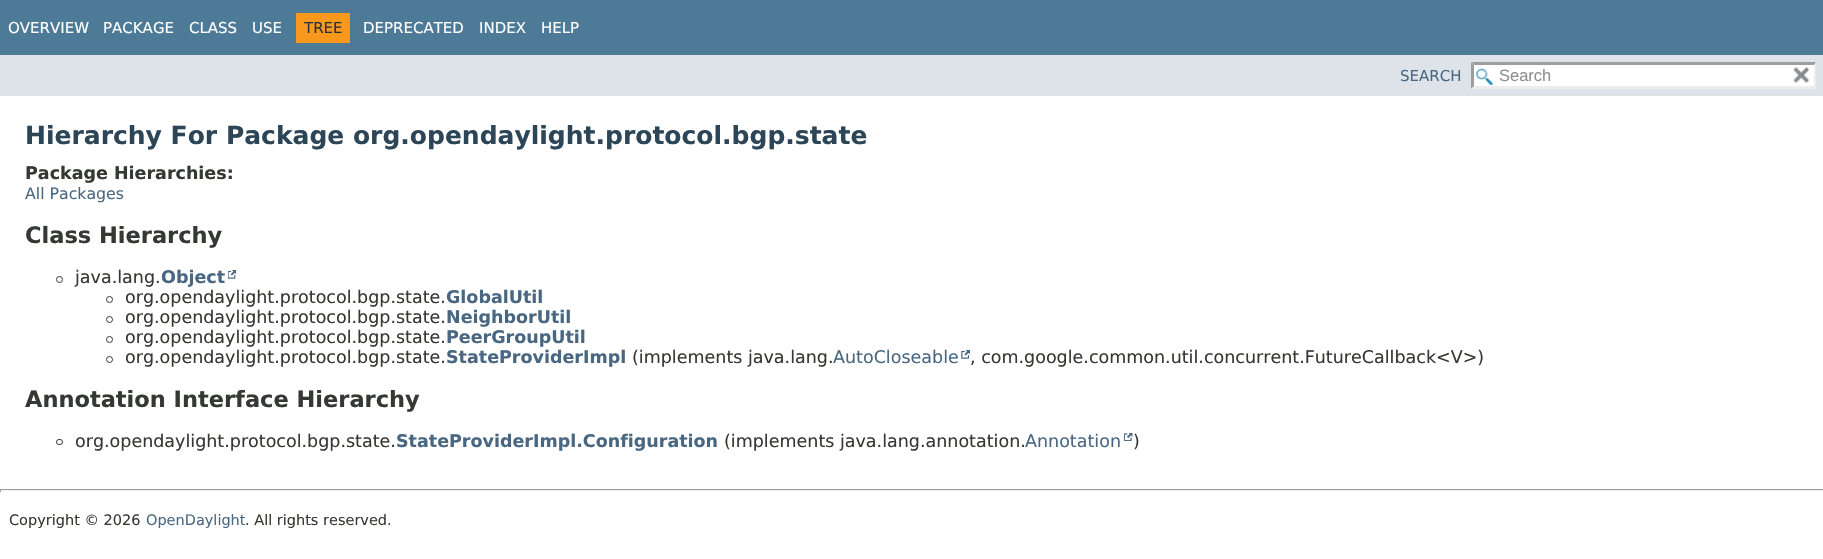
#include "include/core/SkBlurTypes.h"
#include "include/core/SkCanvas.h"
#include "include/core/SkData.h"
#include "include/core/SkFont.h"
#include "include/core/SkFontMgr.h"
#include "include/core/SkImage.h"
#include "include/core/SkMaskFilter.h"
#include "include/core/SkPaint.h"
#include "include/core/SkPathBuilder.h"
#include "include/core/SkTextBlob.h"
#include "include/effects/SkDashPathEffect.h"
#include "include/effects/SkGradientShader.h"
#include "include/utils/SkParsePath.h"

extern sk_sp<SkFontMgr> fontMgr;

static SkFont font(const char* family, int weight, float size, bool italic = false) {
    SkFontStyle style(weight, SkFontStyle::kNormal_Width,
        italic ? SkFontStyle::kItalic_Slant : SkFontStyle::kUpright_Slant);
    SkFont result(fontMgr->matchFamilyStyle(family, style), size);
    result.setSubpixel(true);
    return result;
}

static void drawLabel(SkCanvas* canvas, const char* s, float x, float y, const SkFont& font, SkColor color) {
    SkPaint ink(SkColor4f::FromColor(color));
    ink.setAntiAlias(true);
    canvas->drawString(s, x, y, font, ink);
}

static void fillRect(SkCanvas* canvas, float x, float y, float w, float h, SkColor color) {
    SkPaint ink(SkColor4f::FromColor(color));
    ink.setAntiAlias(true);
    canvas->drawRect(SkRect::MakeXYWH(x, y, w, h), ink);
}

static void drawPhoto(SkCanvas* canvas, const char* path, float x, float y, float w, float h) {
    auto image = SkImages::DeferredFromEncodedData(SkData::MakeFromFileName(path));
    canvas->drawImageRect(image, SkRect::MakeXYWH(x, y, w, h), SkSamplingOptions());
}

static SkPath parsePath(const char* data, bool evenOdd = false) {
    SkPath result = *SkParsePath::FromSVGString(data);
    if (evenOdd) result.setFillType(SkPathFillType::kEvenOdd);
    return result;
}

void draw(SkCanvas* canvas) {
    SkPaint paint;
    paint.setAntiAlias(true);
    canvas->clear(0xFFFFFFFF);
    fillRect(canvas, 0, 0, 1823, 55, 0xFF4D7A97);
    SkFont font1 = font("DejaVu Sans", 400, 15);
    drawLabel(canvas, "OVERVIEW", 8, 33, font1, 0xFFFFFFFF);
    drawLabel(canvas, "PACKAGE", 103, 33, font1, 0xFFFFFFFF);
    drawLabel(canvas, "CLASS", 189, 33, font1, 0xFFFFFFFF);
    drawLabel(canvas, "USE", 252, 33, font1, 0xFFFFFFFF);
    fillRect(canvas, 296, 13, 54, 30, 0xFFF8981D);
    drawLabel(canvas, "TREE", 304, 33, font1, 0xFF253441);
    drawLabel(canvas, "DEPRECATED", 363, 33, font1, 0xFFFFFFFF);
    drawLabel(canvas, "INDEX", 479, 33, font1, 0xFFFFFFFF);
    drawLabel(canvas, "HELP", 541, 33, font1, 0xFFFFFFFF);
    fillRect(canvas, 0, 55, 1823, 41, 0xFFDEE3E9);
    drawLabel(canvas, "SEARCH", 1400, 81, font1, 0xFF4A6782);
    fillRect(canvas, 1471, 63, 345, 26, 0xFFFFFFFF);
    drawPhoto(canvas, "assets/img1.png", 1476, 68, 17, 17);
    paint.setColor(0xFF9E9E9E);
    canvas->drawPath(parsePath("M1471 62H1816L1814 65H1474Z"), paint);
    paint.setColor(0xFFEDEDED);
    canvas->drawPath(parsePath("M1816 62.5V89L1814 86V65Z"), paint);
    canvas->drawPath(parsePath("M1816 89H1471L1474 86H1814Z"), paint);
    paint.setColor(0xFF9E9E9E);
    canvas->drawPath(parsePath("M1471 89V62.5L1474 65V86Z"), paint);
    SkFont font2 = font("Liberation Sans", 400, 16.5f);
    drawLabel(canvas, "Search", 1499, 81, font2, 0xFF909090);
    drawPhoto(canvas, "assets/img2.png", 1793, 67, 16, 16);
    SkFont font3 = font("DejaVu Sans", 700, 25);
    drawLabel(canvas, "Hierarchy For Package org.opendaylight.protocol.bgp.state", 25, 144, font3, 0xFF2C4557);
    SkFont font4 = font("DejaVu Sans", 700, 17.5f);
    drawLabel(canvas, "Package Hierarchies:", 25, 179, font4, 0xFF353833);
    SkFont font5 = font("DejaVu Sans", 400, 15.75f);
    drawLabel(canvas, "All Packages", 25, 199, font5, 0xFF4A6782);
    SkFont font6 = font("DejaVu Sans", 700, 22.5f);
    drawLabel(canvas, "Class Hierarchy", 25, 243, font6, 0xFF353833);
    paint.setStroke(true);
    paint.setStrokeWidth(1);
    paint.setColor(0xFF353833);
    canvas->drawCircle(59.5f, 279.5f, 3, paint);
    SkFont font7 = font("DejaVu Sans", 400, 17.5f);
    drawLabel(canvas, "java.lang.", 75, 283, font7, 0xFF353833);
    drawLabel(canvas, "Object", 161, 283, font4, 0xFF4A6782);
    drawPhoto(canvas, "assets/img3.png", 228, 270, 8, 9);
    canvas->drawCircle(109.5f, 299.5f, 3, paint);
    drawLabel(canvas, "org.opendaylight.protocol.bgp.state.", 125, 303, font7, 0xFF353833);
    drawLabel(canvas, "GlobalUtil", 446, 303, font4, 0xFF4A6782);
    canvas->drawCircle(109.5f, 319.5f, 3, paint);
    drawLabel(canvas, "org.opendaylight.protocol.bgp.state.", 125, 323, font7, 0xFF353833);
    drawLabel(canvas, "NeighborUtil", 446, 323, font4, 0xFF4A6782);
    canvas->drawCircle(109.5f, 339.5f, 3, paint);
    drawLabel(canvas, "org.opendaylight.protocol.bgp.state.", 125, 343, font7, 0xFF353833);
    drawLabel(canvas, "PeerGroupUtil", 446, 343, font4, 0xFF4A6782);
    canvas->drawCircle(109.5f, 359.5f, 3, paint);
    drawLabel(canvas, "org.opendaylight.protocol.bgp.state.", 125, 363, font7, 0xFF353833);
    drawLabel(canvas, "StateProviderImpl", 446, 363, font4, 0xFF4A6782);
    drawLabel(canvas, "(implements java.lang.", 632, 363, font7, 0xFF353833);
    drawLabel(canvas, "AutoCloseable", 833, 363, font7, 0xFF4A6782);
    drawPhoto(canvas, "assets/img4.png", 961, 350, 9, 9);
    drawLabel(canvas, ", com.google.common.util.concurrent.FutureCallback<V>)", 970, 363, font7, 0xFF353833);
    drawLabel(canvas, "Annotation Interface Hierarchy", 25, 407, font6, 0xFF353833);
    canvas->drawRoundRect(SkRect::MakeXYWH(56.5f, 439.5f, 6, 5), 2.5f, 2.5f, paint);
    drawLabel(canvas, "org.opendaylight.protocol.bgp.state.", 75, 447, font7, 0xFF353833);
    drawLabel(canvas, "StateProviderImpl.Configuration", 396, 447, font4, 0xFF4A6782);
    drawLabel(canvas, "(implements java.lang.annotation.", 724, 447, font7, 0xFF353833);
    drawLabel(canvas, "Annotation", 1025, 447, font7, 0xFF4A6782);
    drawPhoto(canvas, "assets/img5.png", 1124, 433, 9, 8);
    drawLabel(canvas, ")", 1133, 447, font7, 0xFF353833);
    fillRect(canvas, 0, 489, 1823, 1, 0xFF9F9F9F);
    fillRect(canvas, 0, 490, 1823, 1, 0xFFEEEEEE);
    fillRect(canvas, 0, 489, 1, 3, 0xFF9F9F9F);
    SkFont font8 = font("DejaVu Sans", 400, 14.5f);
    drawLabel(canvas, "Copyright © 2026", 9, 525, font8, 0xFF353833);
    drawLabel(canvas, "OpenDaylight", 146, 525, font8, 0xFF4A6782);
    drawLabel(canvas, ". All rights reserved.", 245, 525, font8, 0xFF353833);
}
